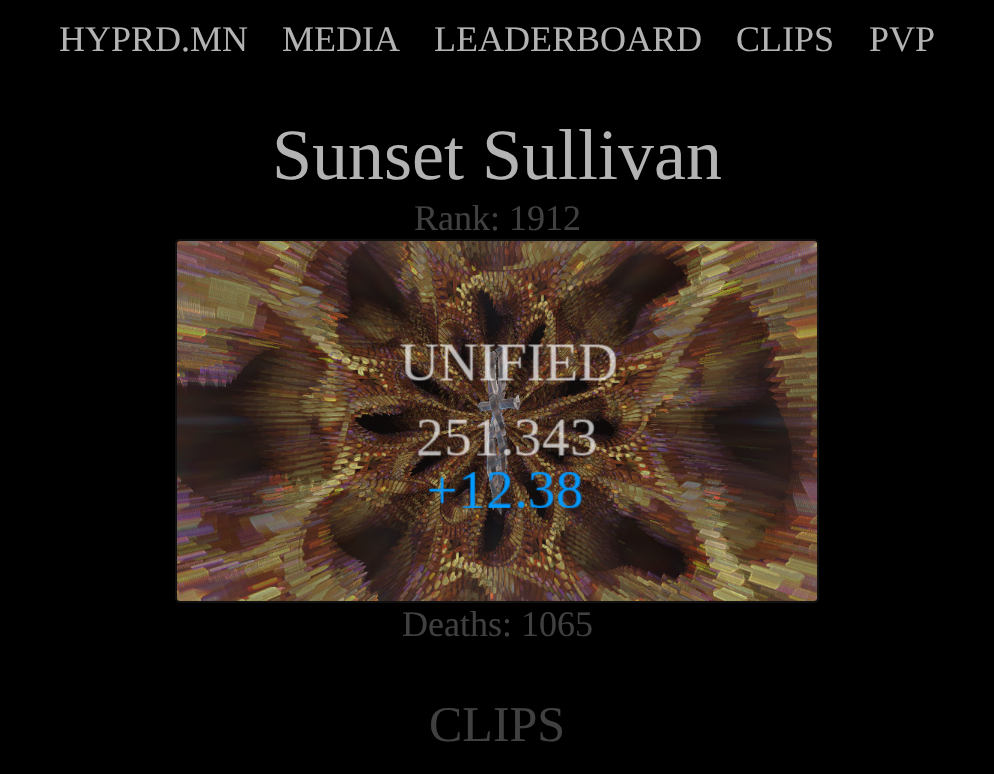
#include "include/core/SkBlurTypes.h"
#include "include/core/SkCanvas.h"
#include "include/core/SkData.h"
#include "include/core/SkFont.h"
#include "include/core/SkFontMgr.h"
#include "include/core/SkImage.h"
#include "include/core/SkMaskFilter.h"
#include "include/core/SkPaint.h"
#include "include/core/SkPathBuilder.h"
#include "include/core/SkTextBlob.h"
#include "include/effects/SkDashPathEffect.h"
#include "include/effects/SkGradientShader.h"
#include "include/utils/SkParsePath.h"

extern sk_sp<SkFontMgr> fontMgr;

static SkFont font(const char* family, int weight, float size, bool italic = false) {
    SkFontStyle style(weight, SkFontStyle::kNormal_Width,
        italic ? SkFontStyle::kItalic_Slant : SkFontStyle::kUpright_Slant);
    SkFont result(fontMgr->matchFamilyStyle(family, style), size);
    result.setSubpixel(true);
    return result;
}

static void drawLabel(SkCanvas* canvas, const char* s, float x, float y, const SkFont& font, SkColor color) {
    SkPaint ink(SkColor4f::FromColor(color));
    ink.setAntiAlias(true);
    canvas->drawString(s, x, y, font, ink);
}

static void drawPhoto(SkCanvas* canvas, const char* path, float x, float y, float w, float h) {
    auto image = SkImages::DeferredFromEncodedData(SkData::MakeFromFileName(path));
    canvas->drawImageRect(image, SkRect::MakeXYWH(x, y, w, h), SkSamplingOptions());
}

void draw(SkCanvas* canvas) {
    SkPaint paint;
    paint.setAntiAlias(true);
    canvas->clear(0xFF000000);
    SkFont font1 = font("Tinos", 400, 36);
    drawLabel(canvas, "HYPRD.MN", 59, 51, font1, 0xFFB3B3B3);
    drawLabel(canvas, "MEDIA", 282, 51, font1, 0xFFB3B3B3);
    drawLabel(canvas, "LEADERBOARD", 434, 51, font1, 0xFFB3B3B3);
    drawLabel(canvas, "CLIPS", 736, 51, font1, 0xFFB3B3B3);
    drawLabel(canvas, "PVP", 869, 51, font1, 0xFFB3B3B3);
    SkFont font2 = font("Tinos", 400, 72);
    drawLabel(canvas, "Sunset Sullivan", 272, 179, font2, 0xFFB3B3B3);
    drawLabel(canvas, "Rank: 1912", 414, 230, font1, 0xFF404040);
    paint.setStroke(true);
    paint.setStrokeWidth(2);
    paint.setColor(0xFF111111);
    canvas->drawRoundRect(SkRect::MakeXYWH(176, 240, 642, 362), 4, 4, paint);
    drawPhoto(canvas, "assets/img1.png", 177, 241, 640, 360);
    drawLabel(canvas, "Deaths: 1065", 402, 636, font1, 0xFF404040);
    SkFont font3 = font("Tinos", 400, 50);
    drawLabel(canvas, "CLIPS", 429, 741, font3, 0xFF404040);
}
